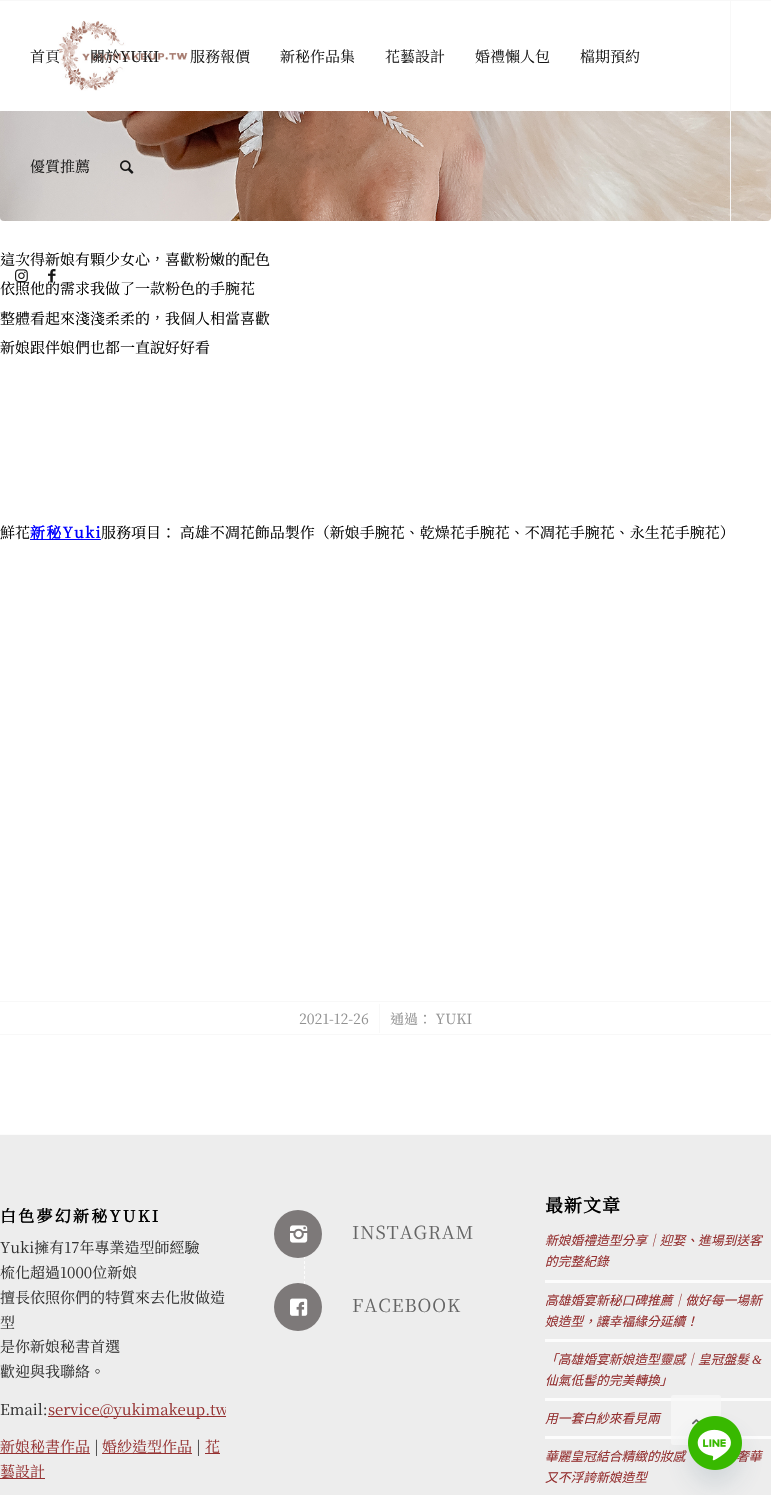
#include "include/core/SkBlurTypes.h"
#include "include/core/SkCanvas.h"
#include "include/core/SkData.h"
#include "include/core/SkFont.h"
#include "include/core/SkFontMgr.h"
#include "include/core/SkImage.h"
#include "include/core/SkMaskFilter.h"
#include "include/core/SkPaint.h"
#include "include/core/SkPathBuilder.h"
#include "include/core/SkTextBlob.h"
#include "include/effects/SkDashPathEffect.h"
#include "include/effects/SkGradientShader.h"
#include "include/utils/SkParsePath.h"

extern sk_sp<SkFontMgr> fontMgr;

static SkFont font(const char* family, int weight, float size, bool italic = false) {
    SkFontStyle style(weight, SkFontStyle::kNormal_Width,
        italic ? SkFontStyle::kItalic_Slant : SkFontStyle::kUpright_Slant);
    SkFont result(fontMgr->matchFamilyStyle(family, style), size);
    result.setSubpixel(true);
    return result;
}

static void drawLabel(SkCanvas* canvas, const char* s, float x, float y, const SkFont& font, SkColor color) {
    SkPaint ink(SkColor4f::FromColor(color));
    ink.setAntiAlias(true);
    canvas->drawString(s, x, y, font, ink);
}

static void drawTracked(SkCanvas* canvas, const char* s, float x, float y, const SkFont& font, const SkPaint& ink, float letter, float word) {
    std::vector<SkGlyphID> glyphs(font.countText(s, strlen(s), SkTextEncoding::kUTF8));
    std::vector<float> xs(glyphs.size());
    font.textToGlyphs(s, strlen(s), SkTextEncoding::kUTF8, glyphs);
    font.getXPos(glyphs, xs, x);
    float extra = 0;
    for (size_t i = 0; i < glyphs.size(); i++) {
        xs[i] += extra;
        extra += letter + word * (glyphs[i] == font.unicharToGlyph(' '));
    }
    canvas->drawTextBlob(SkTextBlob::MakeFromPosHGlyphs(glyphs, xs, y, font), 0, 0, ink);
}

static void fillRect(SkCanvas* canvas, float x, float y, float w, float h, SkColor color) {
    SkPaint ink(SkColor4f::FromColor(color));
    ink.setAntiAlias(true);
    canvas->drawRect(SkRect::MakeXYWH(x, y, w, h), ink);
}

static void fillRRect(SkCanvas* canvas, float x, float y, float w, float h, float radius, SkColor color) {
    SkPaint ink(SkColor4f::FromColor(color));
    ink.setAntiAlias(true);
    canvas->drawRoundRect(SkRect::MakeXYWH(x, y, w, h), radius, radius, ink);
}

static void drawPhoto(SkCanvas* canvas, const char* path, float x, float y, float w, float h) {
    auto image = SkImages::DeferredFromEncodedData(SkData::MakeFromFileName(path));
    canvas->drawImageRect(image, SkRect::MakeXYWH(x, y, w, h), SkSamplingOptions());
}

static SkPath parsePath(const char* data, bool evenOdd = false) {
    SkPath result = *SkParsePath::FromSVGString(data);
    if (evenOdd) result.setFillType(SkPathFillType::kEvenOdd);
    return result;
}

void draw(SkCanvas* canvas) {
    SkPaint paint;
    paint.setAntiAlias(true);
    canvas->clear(0xFFFFFFFF);
    fillRect(canvas, 0, 0, 771, 1, 0xFFF8F8F8);
    drawPhoto(canvas, "assets/img1.png", 58, 20, 130, 71);
    drawPhoto(canvas, "assets/img5.png", 0, 111, 771, 110);
    fillRect(canvas, 730, 1, 1, 220, 0xFFF8F8F8);
    SkFont font1 = font("Noto Serif TC", 200, 15);
    drawLabel(canvas, "首頁", 30, 62, font1, 0xFF171717);
    drawLabel(canvas, "關於YUKI", 90, 62, font1, 0xFF171717);
    drawLabel(canvas, "服務報價", 190, 62, font1, 0xFF171717);
    drawLabel(canvas, "新秘作品集", 280, 62, font1, 0xFF171717);
    drawLabel(canvas, "花藝設計", 385, 62, font1, 0xFF171717);
    drawLabel(canvas, "婚禮懶人包", 475, 62, font1, 0xFF171717);
    drawLabel(canvas, "檔期預約", 580, 62, font1, 0xFF171717);
    drawLabel(canvas, "優質推薦", 30, 172, font1, 0xFF171717);
    drawPhoto(canvas, "assets/img2.png", 120, 160, 14, 14);
    drawLabel(canvas, "依照他的需求我做了一款粉色的手腕花", 0, 294, font1, 0xFF000000);
    drawPhoto(canvas, "assets/img3.png", 15, 269, 13, 14);
    drawPhoto(canvas, "assets/img4.png", 48, 269, 8, 14);
    drawLabel(canvas, "這次得新娘有顆少女心，喜歡粉嫩的配色", 0, 265, font1, 0xFF000000);
    drawLabel(canvas, "整體看起來淺淺柔柔的，我個人相當喜歡", 0, 324, font1, 0xFF000000);
    drawLabel(canvas, "新娘跟伴娘們也都一直說好好看", 0, 353, font1, 0xFF000000);
    drawLabel(canvas, "鮮花", 0, 538, font1, 0xFF000000);
    fillRect(canvas, 30, 539, 71, 1, 0xFF0000FF);
    SkFont font2 = font("Noto Serif TC", 700, 15);
    paint.setColor(0xFF0000FF);
    drawTracked(canvas, "新秘Yuki", 30, 538, font2, paint, 1.25f, 0);
    drawLabel(canvas, "服務項目： 高雄不凋花飾品製作（新娘手腕花、乾燥花手腕花、不凋花手腕花、永生花手腕花）", 101, 538, font1, 0xFF000000);
    fillRect(canvas, 0, 1001, 771, 1, 0xFFF8F8F8);
    fillRect(canvas, 0, 1034, 771, 1, 0xFFF8F8F8);
    SkFont font3 = font("Noto Serif TC", 200, 14);
    drawLabel(canvas, "2021-12-26", 299, 1024, font3, 0xFF919191);
    fillRect(canvas, 379, 1004, 1, 29, 0xFFF8F8F8);
    drawLabel(canvas, "通過： YUKI", 390, 1024, font3, 0xFF919191);
    fillRect(canvas, 0, 1135, 771, 360, 0xFFEDEDED);
    fillRect(canvas, 0, 1134, 771, 1, 0xFFFCFCFC);
    SkFont font4 = font("Noto Serif TC", 700, 16);
    paint.setColor(0xFF000000);
    drawTracked(canvas, "白色夢幻新秘YUKI", 0, 1222, font4, paint, 2.25f, 0);
    drawLabel(canvas, "Yuki擁有17年專業造型師經驗", 0, 1253, font1, 0xFF303030);
    drawLabel(canvas, "梳化超過1000位新娘", 0, 1278, font1, 0xFF303030);
    drawLabel(canvas, "擅長依照你們的特質來去化妝做造", 0, 1303, font1, 0xFF303030);
    drawLabel(canvas, "型", 0, 1328, font1, 0xFF303030);
    drawLabel(canvas, "是你新娘秘書首選", 0, 1352, font1, 0xFF303030);
    drawLabel(canvas, "歡迎與我聯絡。", 0, 1377, font1, 0xFF303030);
    drawLabel(canvas, "Email:", 0, 1415, font1, 0xFF303030);
    fillRect(canvas, 48, 1416, 178, 1, 0xFF953131);
    canvas->save();
    canvas->clipRect(SkRect::MakeXYWH(0, 1180, 226, 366));
    drawLabel(canvas, "service@yukimakeup.tw", 48, 1415, font1, 0xFF953131);
    canvas->restore();
    fillRect(canvas, 0, 1453, 90, 1, 0xFF953131);
    drawLabel(canvas, "新娘秘書作品", 0, 1452, font1, 0xFF953131);
    drawLabel(canvas, "|", 94, 1452, font1, 0xFF303030);
    fillRect(canvas, 102, 1453, 90, 1, 0xFF953131);
    drawLabel(canvas, "婚紗造型作品", 102, 1452, font1, 0xFF953131);
    drawLabel(canvas, "|", 196, 1452, font1, 0xFF303030);
    fillRect(canvas, 205, 1453, 15, 1, 0xFF953131);
    drawLabel(canvas, "花", 205, 1452, font1, 0xFF953131);
    fillRect(canvas, 0, 1478, 45, 1, 0xFF953131);
    drawLabel(canvas, "藝設計", 0, 1477, font1, 0xFF953131);
    paint.setStroke(true);
    paint.setStrokeWidth(1);
    paint.setColor(0xFFFCFCFC);
    paint.setPathEffect(SkDashPathEffect::Make({{3, 2}}, 0));
    canvas->drawPath(parsePath("M304.5 1211V1284"), paint);
    paint.setPathEffect(nullptr);
    paint.setStroke(false);
    paint.setColor(0xFF7D7979);
    canvas->drawCircle(298, 1234, 24, paint);
    drawPhoto(canvas, "assets/img6.png", 290, 1225, 18, 18);
    SkFont font5 = font("Noto Serif TC", 200, 18);
    paint.setColor(0xFF656565);
    drawTracked(canvas, "INSTAGRAM", 352, 1239, font5, paint, 1, 0);
    paint.setColor(0xFF7D7979);
    canvas->drawCircle(298, 1307, 24, paint);
    drawPhoto(canvas, "assets/img7.png", 290, 1298, 18, 18);
    paint.setColor(0xFF656565);
    drawTracked(canvas, "FACEBOOK", 352, 1312, font5, paint, 1, 0);
    SkFont font6 = font("Noto Serif TC", 700, 18);
    paint.setColor(0xFF000000);
    drawTracked(canvas, "最新文章", 545, 1212, font6, paint, 1, 0);
    SkFont font7 = font("Noto Sans CJK TC", 400, 12.75f, true);
    drawLabel(canvas, "新娘婚禮造型分享｜迎娶、進場到送客", 545, 1245, font7, 0xFF953131);
    drawLabel(canvas, "的完整紀錄", 545, 1266, font7, 0xFF953131);
    fillRect(canvas, 545, 1280, 226, 3, 0xFFFCFCFC);
    drawLabel(canvas, "高雄婚宴新秘口碑推薦｜做好每一場新", 545, 1305, font7, 0xFF953131);
    drawLabel(canvas, "娘造型，讓幸福緣分延續！", 545, 1326, font7, 0xFF953131);
    fillRect(canvas, 545, 1339, 226, 3, 0xFFFCFCFC);
    drawLabel(canvas, "「高雄婚宴新娘造型靈感｜皇冠盤髮", 545, 1364, font7, 0xFF953131);
    SkFont font8 = font("Liberation Serif", 400, 12.75f, true);
    drawLabel(canvas, "&", 752, 1364, font8, 0xFF953131);
    drawLabel(canvas, "仙氣低髻的完美轉換」", 545, 1385, font7, 0xFF953131);
    fillRect(canvas, 545, 1398, 226, 3, 0xFFFCFCFC);
    drawLabel(canvas, "用一套白紗來看見兩", 545, 1423, font7, 0xFF953131);
    fillRect(canvas, 545, 1436, 226, 3, 0xFFFCFCFC);
    drawLabel(canvas, "華麗皇冠結合精緻的妝感", 545, 1461, font7, 0xFF953131);
    drawLabel(canvas, "奢華", 736, 1461, font7, 0xFF953131);
    drawLabel(canvas, "又不浮誇新娘造型", 545, 1482, font7, 0xFF953131);
    fillRRect(canvas, 671, 1395, 50, 50, 2, 0xB3F8F8F8);
    drawPhoto(canvas, "assets/img9.png", 692, 1419, 8, 6);
    paint.setColor(0x2949687E);
    paint.setMaskFilter(SkMaskFilter::MakeBlur(kNormal_SkBlurStyle, 12));
    canvas->drawRoundRect(SkRect::MakeXYWH(688, 1432, 54, 54), 27, 27, paint);
    paint.setMaskFilter(nullptr);
    drawPhoto(canvas, "assets/img8.png", 688, 1416, 54, 54);
}
